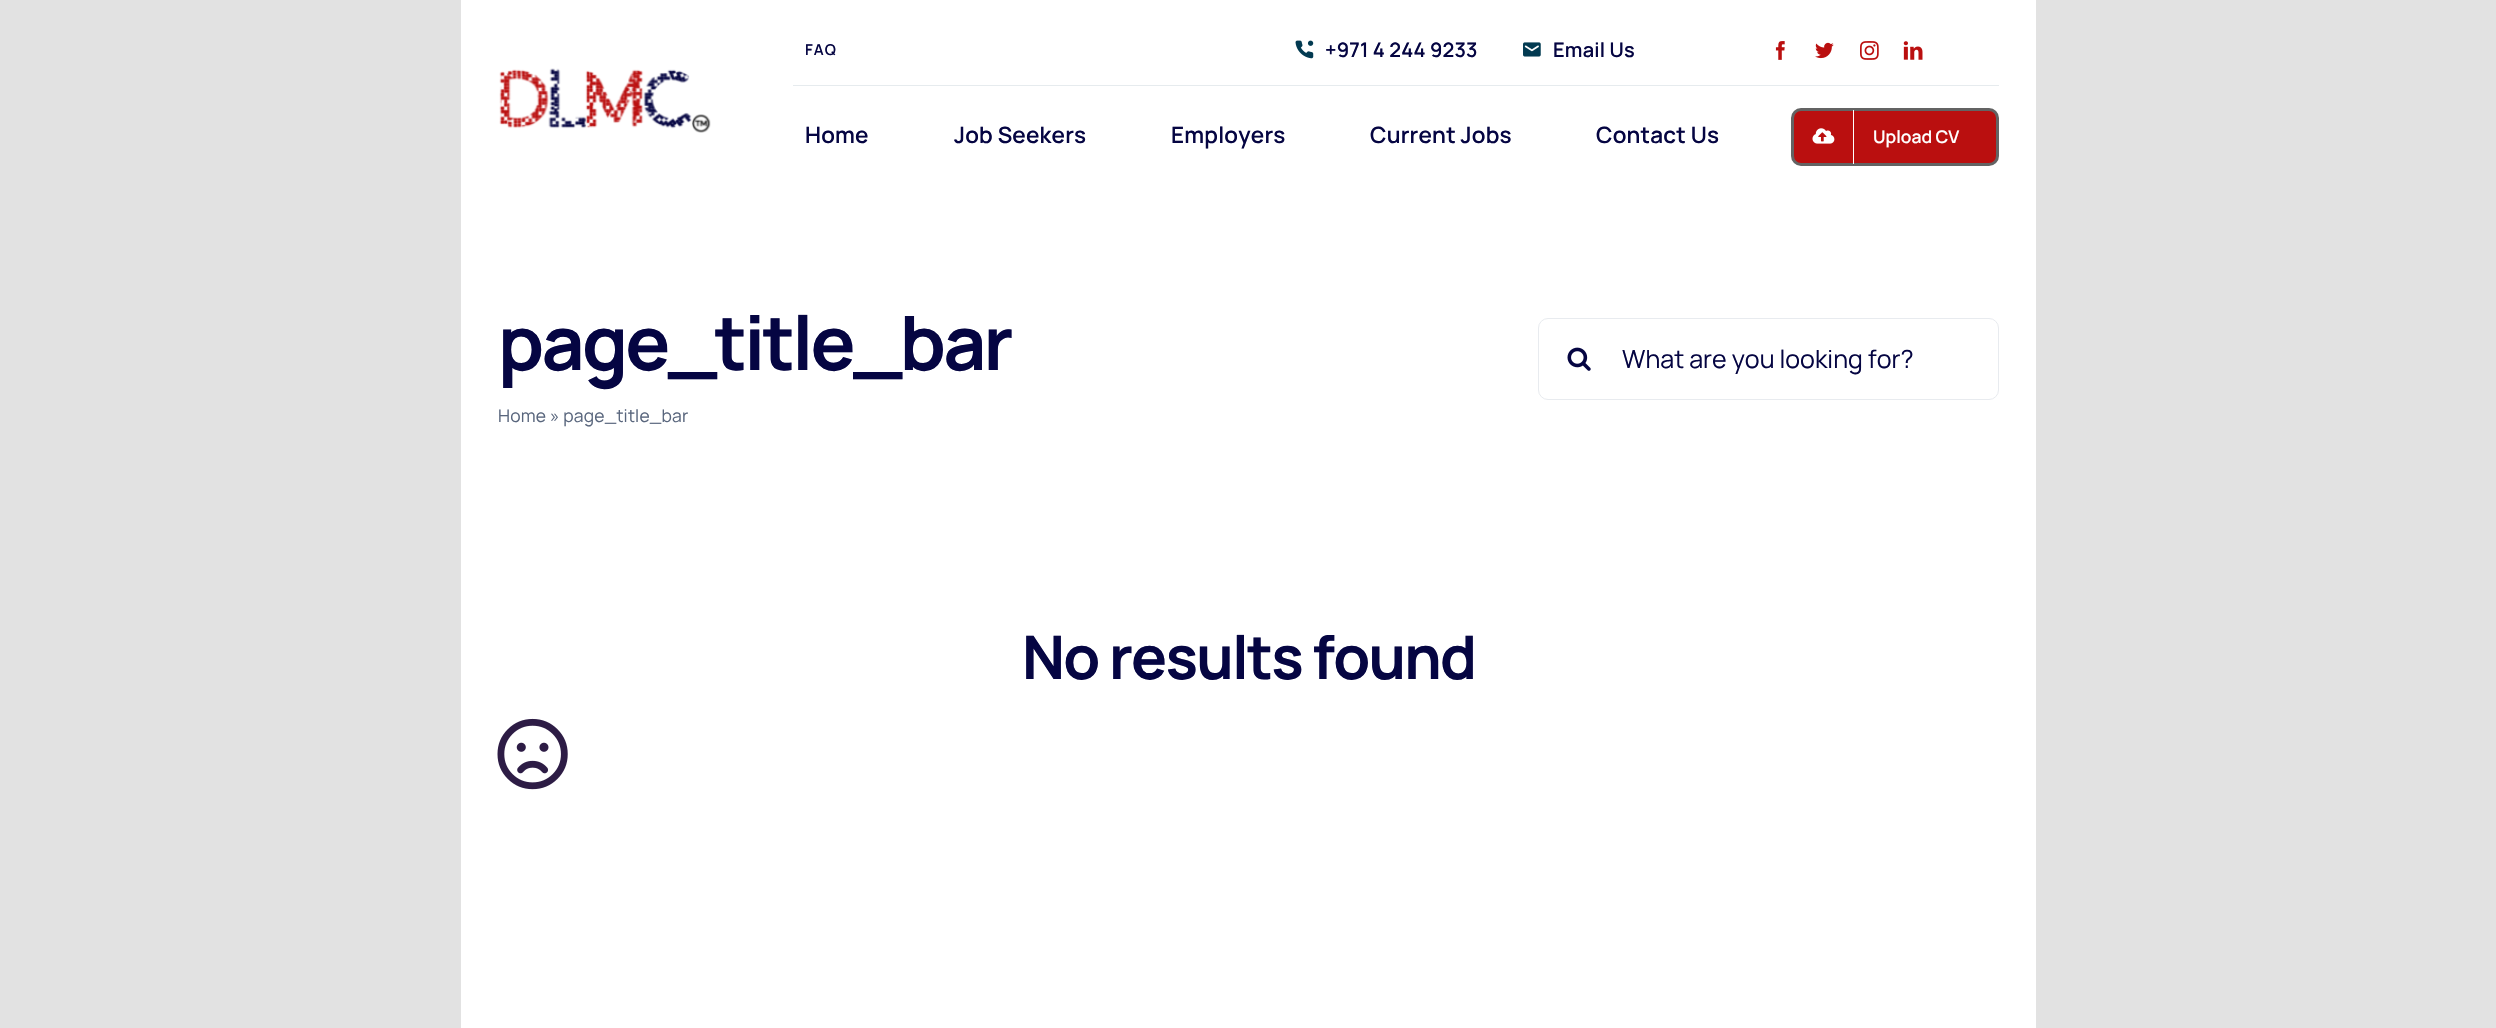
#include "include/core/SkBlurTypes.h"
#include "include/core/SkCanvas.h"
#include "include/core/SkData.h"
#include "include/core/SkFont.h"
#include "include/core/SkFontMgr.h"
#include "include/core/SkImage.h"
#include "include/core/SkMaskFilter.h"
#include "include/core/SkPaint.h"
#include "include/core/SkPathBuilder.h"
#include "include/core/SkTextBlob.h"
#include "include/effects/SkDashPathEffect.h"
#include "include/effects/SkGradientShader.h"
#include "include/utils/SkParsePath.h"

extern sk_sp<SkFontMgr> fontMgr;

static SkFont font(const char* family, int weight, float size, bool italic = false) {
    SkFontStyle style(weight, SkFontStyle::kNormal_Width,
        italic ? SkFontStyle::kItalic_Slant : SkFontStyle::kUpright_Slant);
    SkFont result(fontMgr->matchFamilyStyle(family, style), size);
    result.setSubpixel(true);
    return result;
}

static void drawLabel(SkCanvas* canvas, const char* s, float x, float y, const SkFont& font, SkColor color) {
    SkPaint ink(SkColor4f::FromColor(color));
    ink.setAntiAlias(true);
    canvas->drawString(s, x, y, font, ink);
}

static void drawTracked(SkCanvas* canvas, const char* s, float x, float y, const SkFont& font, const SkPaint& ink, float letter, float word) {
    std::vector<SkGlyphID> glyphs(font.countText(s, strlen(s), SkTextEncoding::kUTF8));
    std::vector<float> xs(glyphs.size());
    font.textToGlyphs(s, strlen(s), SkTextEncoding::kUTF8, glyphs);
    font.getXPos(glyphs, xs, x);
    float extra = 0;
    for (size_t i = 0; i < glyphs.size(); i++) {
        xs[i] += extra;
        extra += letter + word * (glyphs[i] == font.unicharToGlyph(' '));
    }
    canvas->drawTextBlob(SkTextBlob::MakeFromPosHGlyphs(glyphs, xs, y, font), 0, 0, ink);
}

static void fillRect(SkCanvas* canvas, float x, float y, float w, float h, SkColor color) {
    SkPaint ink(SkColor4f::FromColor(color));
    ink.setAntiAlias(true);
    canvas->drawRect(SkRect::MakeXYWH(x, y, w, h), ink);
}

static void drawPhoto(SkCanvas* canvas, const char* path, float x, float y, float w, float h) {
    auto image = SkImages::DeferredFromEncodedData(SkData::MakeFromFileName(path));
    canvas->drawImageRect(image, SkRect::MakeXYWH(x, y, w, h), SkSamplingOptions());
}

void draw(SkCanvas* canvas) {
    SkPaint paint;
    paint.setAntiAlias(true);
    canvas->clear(0xFFE2E2E2);
    fillRect(canvas, 461, 0, 1575, 1028, 0xFFFFFFFF);
    drawPhoto(canvas, "assets/img1.png", 499, 68, 212, 65);
    fillRect(canvas, 793, 85, 1206, 1, 0xFFE6EBEE);
    SkFont font1 = font("Manrope", 600, 15);
    paint.setColor(0xFF050542);
    drawTracked(canvas, "FAQ", 805, 55, font1, paint, 1, 0);
    drawPhoto(canvas, "assets/img2.png", 1295, 40, 19, 19);
    SkFont font2 = font("Manrope", 600, 20);
    drawTracked(canvas, "+971 4 244 9233", 1325, 57, font2, paint, 0.2f, 0);
    drawPhoto(canvas, "assets/img3.png", 1523, 42, 18, 15);
    drawTracked(canvas, "Email Us", 1553, 57, font2, paint, 0.2f, 0);
    drawPhoto(canvas, "assets/img4.png", 1775, 41, 10, 19);
    drawPhoto(canvas, "assets/img5.png", 1815, 42, 19, 17);
    drawPhoto(canvas, "assets/img6.png", 1860, 41, 19, 19);
    drawPhoto(canvas, "assets/img7.png", 1903, 41, 20, 19);
    SkFont font3 = font("Manrope", 600, 22.5f);
    drawTracked(canvas, "Home", 805, 143, font3, paint, 0.2f, 0);
    drawTracked(canvas, "Job Seekers", 954, 143, font3, paint, 0.2f, 0);
    drawTracked(canvas, "Employers", 1171, 143, font3, paint, 0.2f, 0);
    drawTracked(canvas, "Current Jobs", 1370, 143, font3, paint, 0.2f, 0);
    drawTracked(canvas, "Contact Us", 1596, 143, font3, paint, 0.2f, 0);
    paint.setColor(0xFFBA0F0F);
    canvas->drawRoundRect(SkRect::MakeXYWH(1792.5f, 109.5f, 205, 55), 8.5f, 8.5f, paint);
    paint.setStroke(true);
    paint.setStrokeWidth(3);
    paint.setColor(0xFF636363);
    canvas->drawRoundRect(SkRect::MakeXYWH(1792.5f, 109.5f, 205, 55), 8.5f, 8.5f, paint);
    fillRect(canvas, 1853, 110, 1, 54, 0xFFFFFFFF);
    drawPhoto(canvas, "assets/img8.png", 1812, 128, 23, 16);
    SkFont font4 = font("Manrope", 600, 17.5f);
    drawLabel(canvas, "Upload CV", 1873, 143, font4, 0xFFFFFFFF);
    SkFont font5 = font("Manrope", 700, 75);
    paint.setStroke(false);
    paint.setColor(0xFF050542);
    drawTracked(canvas, "page_title_bar", 498, 370, font5, paint, -2.75f, 0);
    SkFont font6 = font("Manrope", 400, 17.5f);
    paint.setColor(0xFF59667D);
    drawTracked(canvas, "Home » page_title_bar", 498, 422, font6, paint, 0.2f, 0);
    paint.setStroke(true);
    paint.setStrokeWidth(1);
    paint.setColor(0xFFE8EBEF);
    canvas->drawRoundRect(SkRect::MakeXYWH(1538.5f, 318.5f, 460, 81), 9.5f, 9.5f, paint);
    drawPhoto(canvas, "assets/img9.png", 1567, 347, 24, 24);
    SkFont font7 = font("Manrope", 400, 25);
    drawLabel(canvas, "What are you looking for?", 1622, 368, font7, 0xFF050542);
    SkFont font8 = font("Manrope", 700, 60);
    paint.setStroke(false);
    paint.setColor(0xFF050542);
    drawTracked(canvas, "No results found", 1022, 679, font8, paint, -1.75f, 0);
    drawPhoto(canvas, "assets/img10.png", 497, 718, 71, 72);
}
